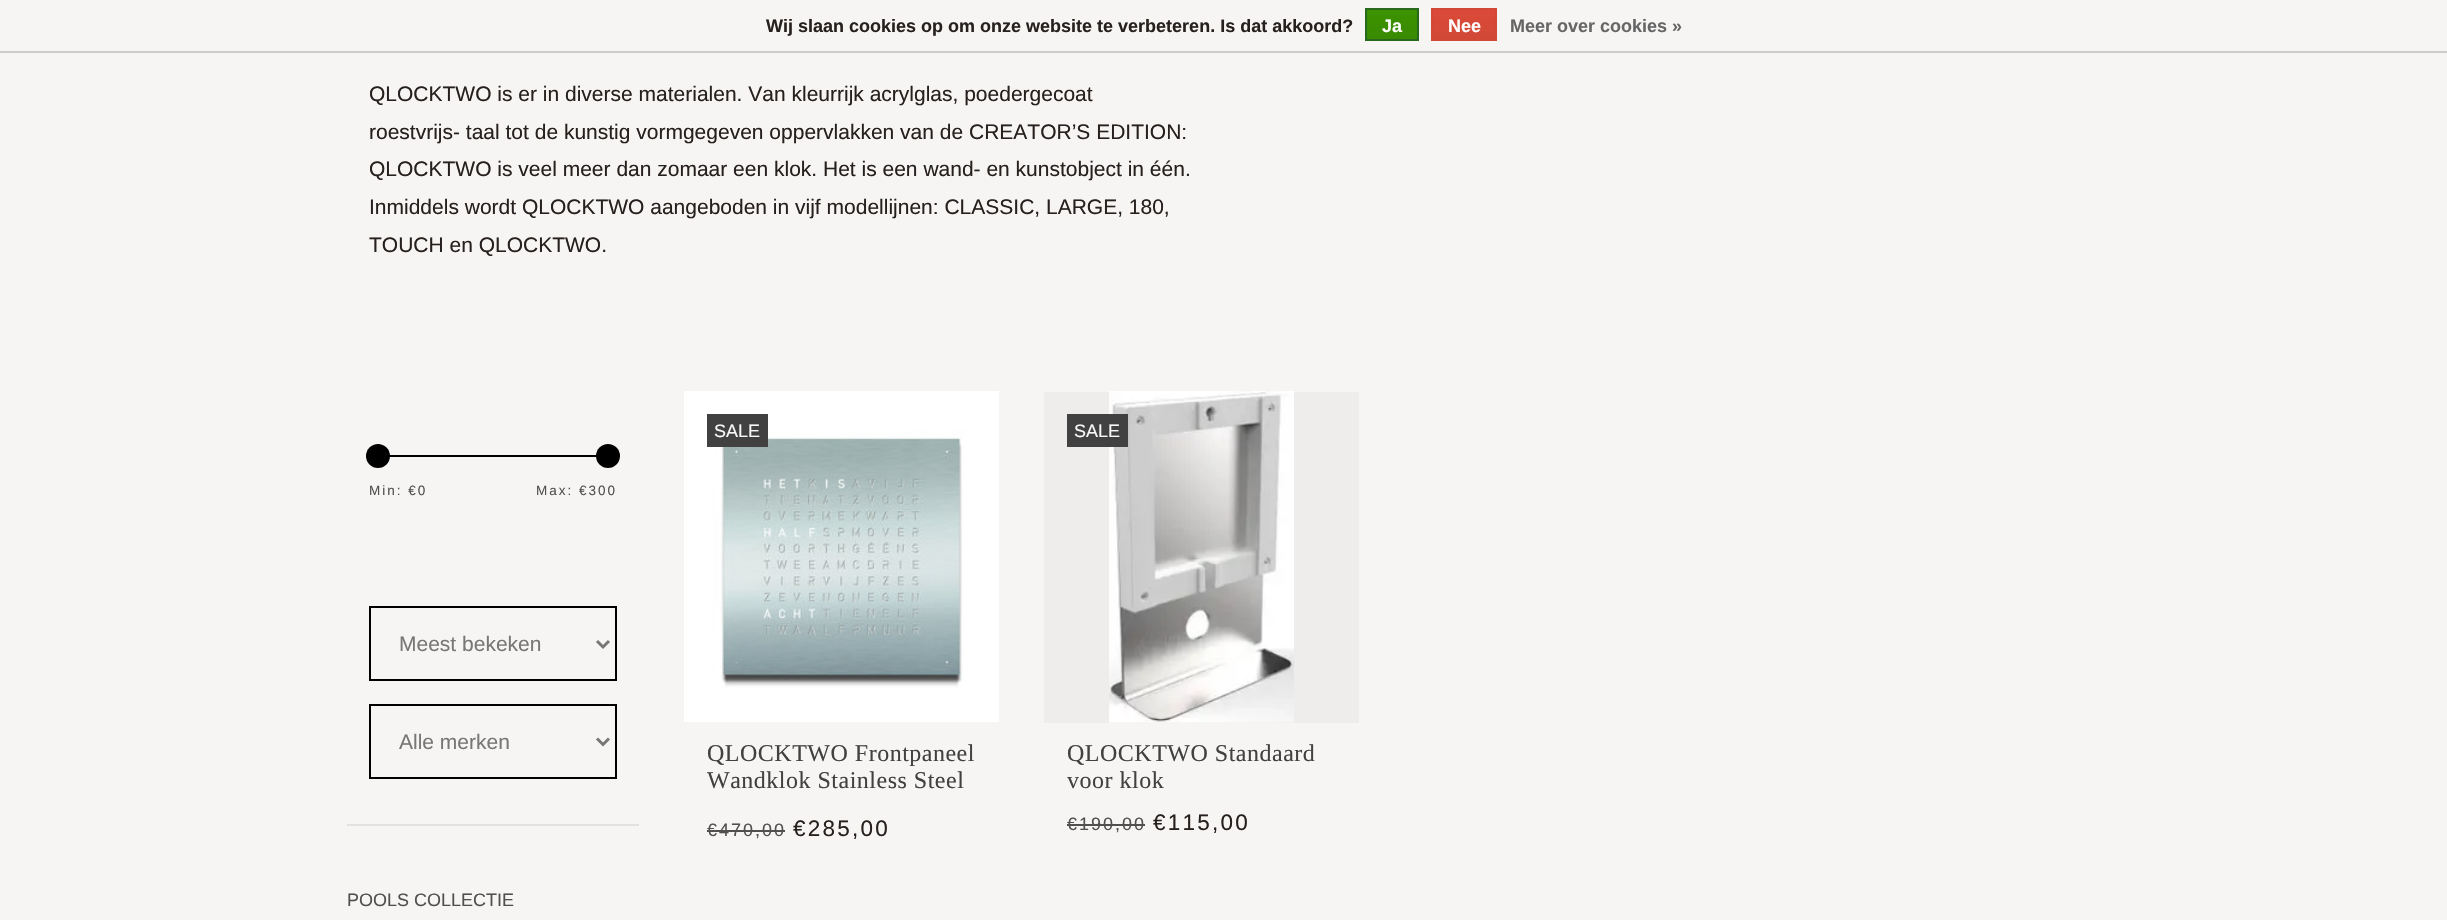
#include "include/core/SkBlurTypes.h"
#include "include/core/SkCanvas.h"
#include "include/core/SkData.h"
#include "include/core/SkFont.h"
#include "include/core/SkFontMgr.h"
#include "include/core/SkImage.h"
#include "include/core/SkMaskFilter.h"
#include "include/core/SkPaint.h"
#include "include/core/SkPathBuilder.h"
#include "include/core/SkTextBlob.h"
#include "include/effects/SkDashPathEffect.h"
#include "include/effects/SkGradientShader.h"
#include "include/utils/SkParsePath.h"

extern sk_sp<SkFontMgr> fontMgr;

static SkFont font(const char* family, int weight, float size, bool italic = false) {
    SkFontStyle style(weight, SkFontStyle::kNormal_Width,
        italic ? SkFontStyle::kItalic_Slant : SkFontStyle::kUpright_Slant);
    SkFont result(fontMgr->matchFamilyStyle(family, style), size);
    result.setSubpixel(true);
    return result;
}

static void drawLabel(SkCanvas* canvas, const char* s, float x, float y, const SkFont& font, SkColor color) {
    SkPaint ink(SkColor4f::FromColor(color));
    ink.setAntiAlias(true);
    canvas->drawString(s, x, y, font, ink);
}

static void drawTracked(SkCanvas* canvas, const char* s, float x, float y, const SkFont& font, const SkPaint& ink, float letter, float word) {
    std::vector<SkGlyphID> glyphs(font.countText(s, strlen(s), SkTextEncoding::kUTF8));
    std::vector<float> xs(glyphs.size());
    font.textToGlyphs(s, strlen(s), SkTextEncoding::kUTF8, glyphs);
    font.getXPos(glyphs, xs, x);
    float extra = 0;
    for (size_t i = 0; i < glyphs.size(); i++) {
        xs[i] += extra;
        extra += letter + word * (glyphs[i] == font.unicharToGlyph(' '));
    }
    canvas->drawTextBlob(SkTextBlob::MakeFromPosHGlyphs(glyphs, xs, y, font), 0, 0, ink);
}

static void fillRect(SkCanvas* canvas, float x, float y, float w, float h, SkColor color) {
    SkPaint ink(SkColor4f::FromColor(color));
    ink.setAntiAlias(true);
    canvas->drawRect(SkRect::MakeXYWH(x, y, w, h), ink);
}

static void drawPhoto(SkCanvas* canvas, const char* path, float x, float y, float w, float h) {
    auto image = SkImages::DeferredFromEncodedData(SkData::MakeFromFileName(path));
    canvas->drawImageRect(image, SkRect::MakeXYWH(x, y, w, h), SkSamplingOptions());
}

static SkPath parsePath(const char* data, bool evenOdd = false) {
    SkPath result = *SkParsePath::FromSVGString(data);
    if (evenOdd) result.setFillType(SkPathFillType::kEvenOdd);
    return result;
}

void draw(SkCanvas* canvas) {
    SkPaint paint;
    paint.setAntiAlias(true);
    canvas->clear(0xFFF7F5F3);
    fillRect(canvas, 0, 51, 2447, 2, 0xFFCCCCCC);
    SkFont font1 = font("Liberation Sans", 700, 18);
    drawLabel(canvas, "Wij slaan cookies op om onze website te verbeteren. Is dat akkoord?", 766, 32, font1, 0xFF26201E);
    {
        const SkColor colors[] = {0xFF3C9300, 0xFF398A00};
        const float stops[] = {0, 1};
        const SkPoint ends[] = {{1392, 9}, {1392, 39}};
        paint.setShader(SkGradientShader::MakeLinear(ends, colors, stops, 2, SkTileMode::kClamp));
        paint.setAlpha(255);
    }
    canvas->drawRect(SkRect::MakeXYWH(1367, 10, 50, 29), paint);
    paint.setStroke(true);
    paint.setStrokeWidth(2);
    paint.setShader(nullptr);
    paint.setColor(0xFF29691D);
    canvas->drawRect(SkRect::MakeXYWH(1366, 9, 52, 31), paint);
    drawLabel(canvas, "Ja", 1382, 32, font1, 0xFFFFFFFF);
    paint.setStroke(false);
    {
        const SkColor colors[] = {0xFFDC4A38, 0xFFD14836};
        const float stops[] = {0, 1};
        const SkPoint ends[] = {{1464, 9}, {1464, 39}};
        paint.setShader(SkGradientShader::MakeLinear(ends, colors, stops, 2, SkTileMode::kClamp));
        paint.setAlpha(255);
    }
    canvas->drawRect(SkRect::MakeXYWH(1433, 10, 62, 29), paint);
    paint.setStroke(true);
    paint.setShader(nullptr);
    paint.setColor(0xFFD14836);
    canvas->drawRect(SkRect::MakeXYWH(1432, 9, 64, 31), paint);
    drawLabel(canvas, "Nee", 1448, 32, font1, 0xFFFFFFFF);
    drawLabel(canvas, "Meer over cookies »", 1510, 32, font1, 0xFF666666);
    SkFont font2 = font("Liberation Sans", 400, 21);
    drawLabel(canvas, "QLOCKTWO is er in diverse materialen. Van kleurrijk acrylglas, poedergecoat", 369, 101, font2, 0xFF26201E);
    drawLabel(canvas, "roestvrijs- taal tot de kunstig vormgegeven oppervlakken van de CREATOR’S EDITION:", 369, 139, font2, 0xFF26201E);
    drawLabel(canvas, "QLOCKTWO is veel meer dan zomaar een klok. Het is een wand- en kunstobject in één.", 369, 176, font2, 0xFF26201E);
    drawLabel(canvas, "Inmiddels wordt QLOCKTWO aangeboden in vijf modellijnen: CLASSIC, LARGE, 180,", 369, 214, font2, 0xFF26201E);
    drawLabel(canvas, "TOUCH en QLOCKTWO.", 369, 252, font2, 0xFF26201E);
    fillRect(canvas, 347, 824, 292, 2, 0xFFE3E1DF);
    fillRect(canvas, 389, 455, 208, 2, 0xFF000000);
    paint.setStroke(false);
    paint.setColor(0xFF000000);
    canvas->drawCircle(378, 456, 12, paint);
    canvas->drawCircle(608, 456, 12, paint);
    SkFont font3 = font("Liberation Sans", 400, 13.5f);
    paint.setColor(0xFF505050);
    drawTracked(canvas, "Min: €0", 369, 495, font3, paint, 2, 0);
    drawTracked(canvas, "Max: €300", 536, 495, font3, paint, 2, 0);
    paint.setStroke(true);
    paint.setColor(0xFF000000);
    canvas->drawRect(SkRect::MakeXYWH(370, 607, 246, 73), paint);
    paint.setStrokeWidth(3);
    paint.setColor(0xFF777777);
    canvas->drawPath(parsePath("M597 641L603 647L609 641"), paint);
    drawLabel(canvas, "Meest bekeken", 399, 651, font2, 0xFF777777);
    paint.setStrokeWidth(2);
    paint.setColor(0xFF000000);
    canvas->drawRect(SkRect::MakeXYWH(370, 705, 246, 73), paint);
    paint.setStrokeWidth(3);
    paint.setColor(0xFF777777);
    canvas->drawPath(parsePath("M597 738.5L603 744.5L609 738.5"), paint);
    drawLabel(canvas, "Alle merken", 399, 749, font2, 0xFF777777);
    SkFont font4 = font("Liberation Sans", 400, 18);
    drawLabel(canvas, "POOLS COLLECTIE", 347, 906, font4, 0xFF505050);
    fillRect(canvas, 684, 722, 315, 1, 0xFFEFEDEB);
    drawPhoto(canvas, "assets/img1.png", 684, 391, 315, 332);
    fillRect(canvas, 707, 414, 61, 33, 0xFF414141);
    drawLabel(canvas, "SALE", 714, 437, font4, 0xFFF7F7F7);
    SkFont font5 = font("Liberation Serif", 400, 24);
    paint.setStroke(false);
    paint.setColor(0xFF414141);
    drawTracked(canvas, "QLOCKTWO Frontpaneel", 707, 761, font5, paint, 0.5f, 0);
    drawTracked(canvas, "Wandklok Stainless Steel", 707, 788, font5, paint, 0.5f, 0);
    paint.setColor(0xFF505050);
    drawTracked(canvas, "€470,00", 707, 836, font4, paint, 2, 0);
    fillRect(canvas, 707, 830, 78, 2, 0xFF505050);
    SkFont font6 = font("Liberation Sans", 400, 22.5f);
    paint.setColor(0xFF26201E);
    drawTracked(canvas, "€285,00", 793, 836, font6, paint, 2.25f, 0);
    fillRect(canvas, 1044, 392, 315, 331, 0xFFEFEDEB);
    drawPhoto(canvas, "assets/img2.png", 1109, 391, 185, 332);
    fillRect(canvas, 1067, 414, 61, 33, 0xFF414141);
    drawLabel(canvas, "SALE", 1074, 437, font4, 0xFFF7F7F7);
    paint.setColor(0xFF414141);
    drawTracked(canvas, "QLOCKTWO Standaard", 1067, 761, font5, paint, 0.5f, 0);
    drawTracked(canvas, "voor klok", 1067, 788, font5, paint, 0.5f, 0);
    paint.setColor(0xFF505050);
    drawTracked(canvas, "€190,00", 1067, 830, font4, paint, 2, 0);
    fillRect(canvas, 1067, 824, 78, 2, 0xFF505050);
    paint.setColor(0xFF26201E);
    drawTracked(canvas, "€115,00", 1153, 830, font6, paint, 2.25f, 0);
}
